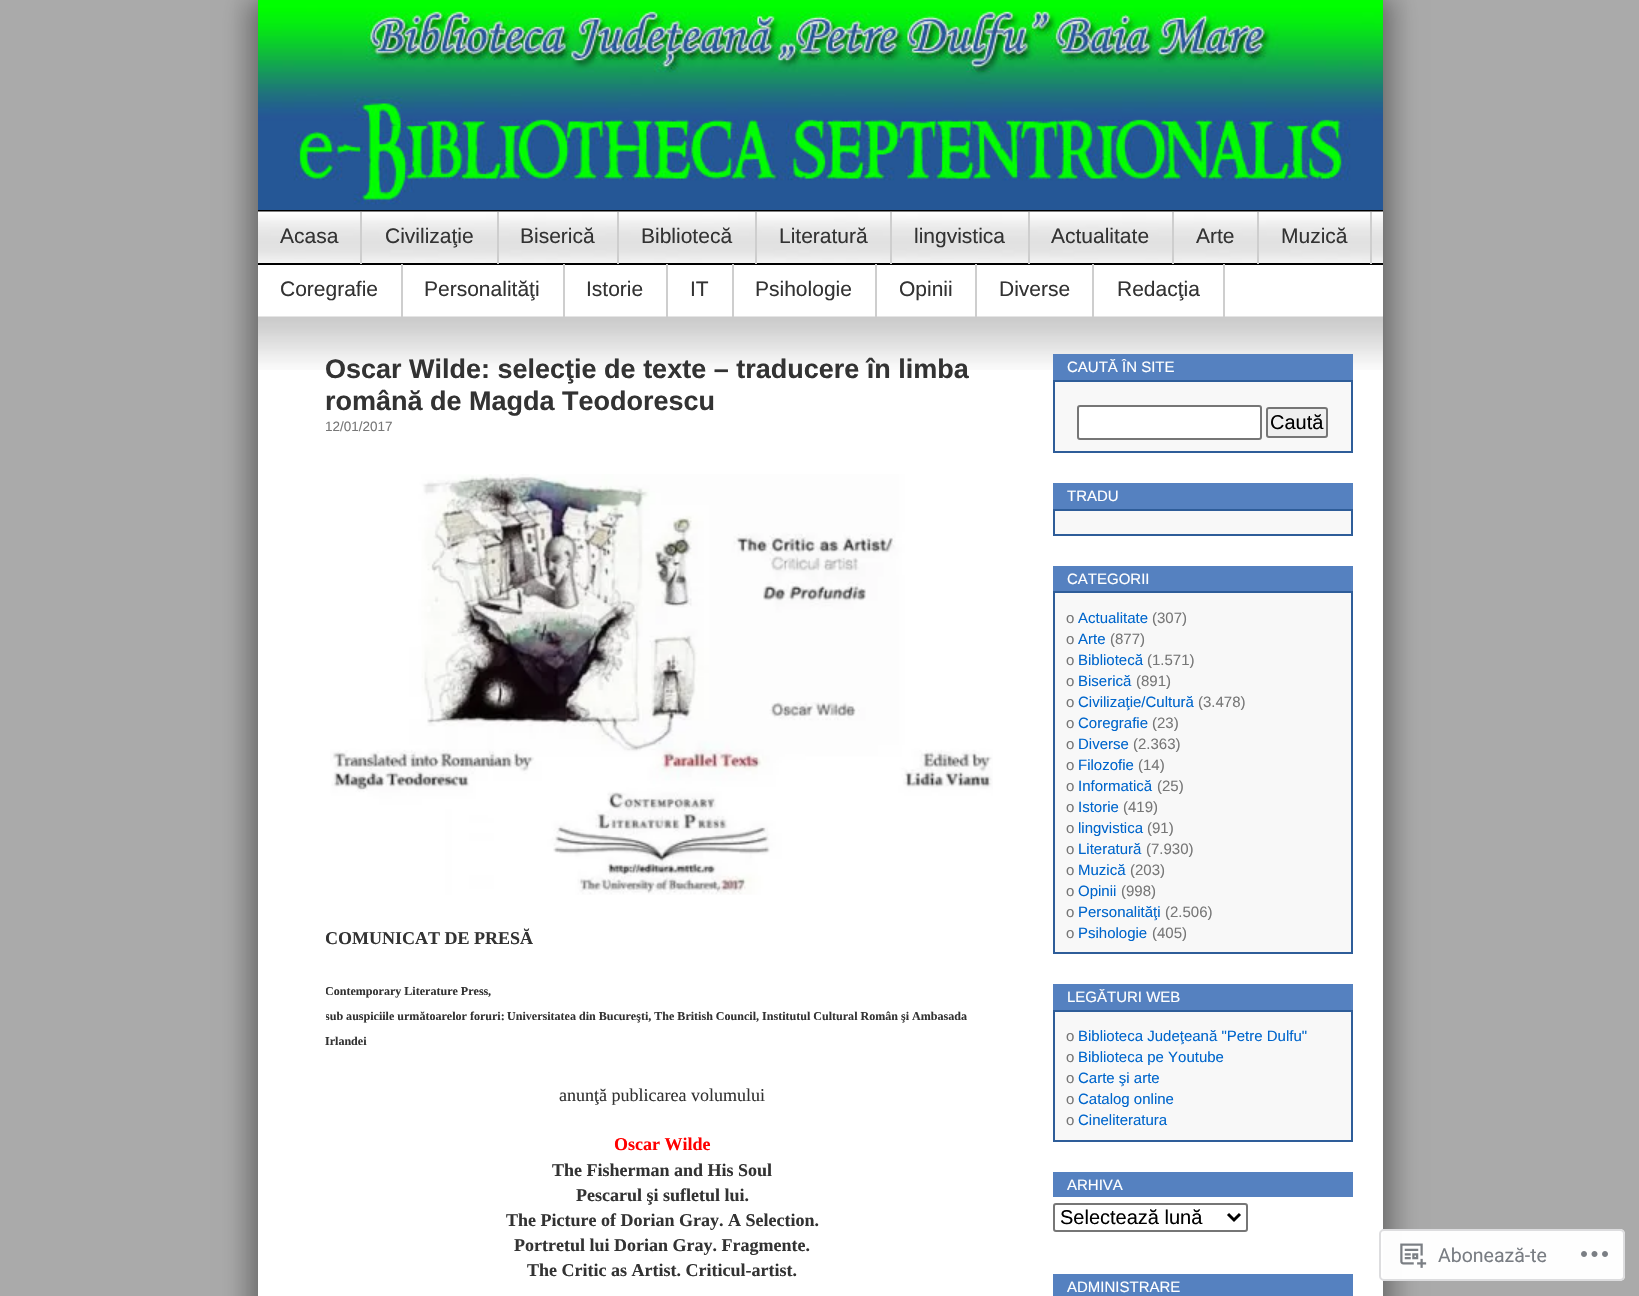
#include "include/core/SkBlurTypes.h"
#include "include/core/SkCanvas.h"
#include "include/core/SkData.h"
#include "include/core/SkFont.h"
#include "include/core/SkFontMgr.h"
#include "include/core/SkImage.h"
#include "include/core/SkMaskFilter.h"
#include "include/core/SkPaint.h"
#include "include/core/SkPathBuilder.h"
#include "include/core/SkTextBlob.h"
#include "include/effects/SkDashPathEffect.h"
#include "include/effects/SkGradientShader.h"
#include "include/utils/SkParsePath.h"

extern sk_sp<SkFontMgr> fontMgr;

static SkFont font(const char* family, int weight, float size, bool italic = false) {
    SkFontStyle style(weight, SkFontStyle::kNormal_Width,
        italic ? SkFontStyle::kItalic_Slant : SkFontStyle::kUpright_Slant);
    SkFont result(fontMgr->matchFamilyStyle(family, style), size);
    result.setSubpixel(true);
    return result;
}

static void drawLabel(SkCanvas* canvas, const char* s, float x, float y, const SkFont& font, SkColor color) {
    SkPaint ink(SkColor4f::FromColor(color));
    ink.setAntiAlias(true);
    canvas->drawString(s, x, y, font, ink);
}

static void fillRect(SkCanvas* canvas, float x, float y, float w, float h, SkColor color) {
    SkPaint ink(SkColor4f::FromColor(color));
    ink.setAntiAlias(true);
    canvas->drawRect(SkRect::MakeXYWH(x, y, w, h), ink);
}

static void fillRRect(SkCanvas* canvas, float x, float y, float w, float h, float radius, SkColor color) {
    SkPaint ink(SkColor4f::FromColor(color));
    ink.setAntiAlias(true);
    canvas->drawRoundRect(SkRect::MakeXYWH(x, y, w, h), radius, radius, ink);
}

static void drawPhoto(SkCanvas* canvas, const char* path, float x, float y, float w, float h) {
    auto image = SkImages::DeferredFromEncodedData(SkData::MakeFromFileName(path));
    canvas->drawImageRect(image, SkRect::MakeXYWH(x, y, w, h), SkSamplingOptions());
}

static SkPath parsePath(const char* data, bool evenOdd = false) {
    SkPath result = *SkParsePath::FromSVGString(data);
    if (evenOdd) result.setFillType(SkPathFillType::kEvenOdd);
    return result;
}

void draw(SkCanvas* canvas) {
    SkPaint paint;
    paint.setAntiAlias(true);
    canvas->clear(0xFFAAAAAA);
    paint.setColor(0x4D000000);
    paint.setMaskFilter(SkMaskFilter::MakeBlur(kNormal_SkBlurStyle, 12));
    canvas->drawRect(SkRect::MakeXYWH(246, 0, 1125, 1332), paint);
    paint.setMaskFilter(nullptr);
    paint.setMaskFilter(SkMaskFilter::MakeBlur(kNormal_SkBlurStyle, 12));
    canvas->drawRect(SkRect::MakeXYWH(270, -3, 1125, 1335), paint);
    paint.setMaskFilter(nullptr);
    fillRect(canvas, 258, 265, 1125, 1031, 0xFFFFFFFF);
    fillRect(canvas, 258, 210, 1125, 2, 0xFF000000);
    drawPhoto(canvas, "assets/img1.png", 258, 0, 1125, 210);
    drawPhoto(canvas, "assets/img2.png", 258, 211, 1125, 52);
    fillRect(canvas, 258, 263, 1125, 2, 0xFF000000);
    fillRect(canvas, 360, 212, 2, 52, 0xFFCECECE);
    SkFont font1 = font("Liberation Sans", 400, 21);
    drawLabel(canvas, "Acasa", 280, 243, font1, 0xFF333333);
    fillRect(canvas, 497, 212, 2, 52, 0xFFCECECE);
    drawLabel(canvas, "Civilizaţie", 385, 243, font1, 0xFF333333);
    fillRect(canvas, 617, 212, 2, 52, 0xFFCECECE);
    drawLabel(canvas, "Biserică", 520, 243, font1, 0xFF333333);
    fillRect(canvas, 755, 212, 2, 52, 0xFFCECECE);
    drawLabel(canvas, "Bibliotecă", 641, 243, font1, 0xFF333333);
    fillRect(canvas, 890, 212, 2, 52, 0xFFCECECE);
    drawLabel(canvas, "Literatură", 779, 243, font1, 0xFF333333);
    fillRect(canvas, 1028, 212, 2, 52, 0xFFCECECE);
    drawLabel(canvas, "lingvistica", 914, 243, font1, 0xFF333333);
    fillRect(canvas, 1172, 212, 2, 52, 0xFFCECECE);
    drawLabel(canvas, "Actualitate", 1051, 243, font1, 0xFF333333);
    fillRect(canvas, 1257, 212, 2, 52, 0xFFCECECE);
    drawLabel(canvas, "Arte", 1196, 243, font1, 0xFF333333);
    fillRect(canvas, 1370, 212, 2, 52, 0xFFCECECE);
    drawLabel(canvas, "Muzică", 1281, 243, font1, 0xFF333333);
    drawPhoto(canvas, "assets/img3.png", 258, 316, 1125, 54);
    fillRect(canvas, 401, 264, 2, 53, 0xFFCECECE);
    drawLabel(canvas, "Coregrafie", 280, 296, font1, 0xFF333333);
    fillRect(canvas, 563, 264, 2, 53, 0xFFCECECE);
    drawLabel(canvas, "Personalităţi", 424, 296, font1, 0xFF333333);
    fillRect(canvas, 666, 264, 2, 53, 0xFFCECECE);
    drawLabel(canvas, "Istorie", 586, 296, font1, 0xFF333333);
    fillRect(canvas, 732, 264, 2, 53, 0xFFCECECE);
    drawLabel(canvas, "IT", 690, 296, font1, 0xFF333333);
    fillRect(canvas, 875, 264, 2, 53, 0xFFCECECE);
    drawLabel(canvas, "Psihologie", 755, 296, font1, 0xFF333333);
    fillRect(canvas, 975, 264, 2, 53, 0xFFCECECE);
    drawLabel(canvas, "Opinii", 899, 296, font1, 0xFF333333);
    fillRect(canvas, 1092, 264, 2, 53, 0xFFCECECE);
    drawLabel(canvas, "Diverse", 999, 296, font1, 0xFF333333);
    fillRect(canvas, 1223, 264, 2, 53, 0xFFCECECE);
    drawLabel(canvas, "Redacţia", 1117, 296, font1, 0xFF333333);
    SkFont font2 = font("Liberation Sans", 700, 27);
    drawLabel(canvas, "Oscar Wilde: selecţie de texte – traducere în limba", 325, 378, font2, 0xFF333333);
    drawLabel(canvas, "română de Magda Teodorescu", 325, 410, font2, 0xFF333333);
    SkFont font3 = font("Liberation Sans", 400, 13.5f);
    drawLabel(canvas, "12/01/2017", 325, 431, font3, 0xFF777777);
    drawPhoto(canvas, "assets/img4.png", 330, 474, 663, 421);
    canvas->save();
    canvas->clipRect(SkRect::MakeXYWH(326, 438, 675, 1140));
    SkFont font4 = font("Liberation Serif", 700, 18);
    drawLabel(canvas, "COMUNICAT DE PRESĂ", 325, 944, font4, 0xFF333333);
    SkFont font5 = font("Liberation Serif", 700, 12.05f);
    drawLabel(canvas, "Contemporary Literature Press", 325, 995, font5, 0xFF333333);
    canvas->restore();
    drawLabel(canvas, ",", 488, 995, font5, 0xFF333333);
    canvas->save();
    canvas->clipRect(SkRect::MakeXYWH(326, 438, 675, 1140));
    drawLabel(canvas, "sub auspiciile următoarelor foruri:", 325, 1020, font5, 0xFF333333);
    canvas->restore();
    drawLabel(canvas, "Universitatea din Bucureşti, The British Council, Institutul Cultural Român şi Ambasada", 507, 1020, font5, 0xFF333333);
    drawLabel(canvas, "Irlandei", 325, 1045, font5, 0xFF333333);
    SkFont font6 = font("Liberation Serif", 400, 18);
    drawLabel(canvas, "anunţă publicarea volumului", 559, 1101, font6, 0xFF333333);
    drawLabel(canvas, "Oscar Wilde", 614, 1150, font4, 0xFFFF0000);
    drawLabel(canvas, "The Fisherman and His Soul", 552, 1176, font4, 0xFF333333);
    drawLabel(canvas, "Pescarul şi sufletul lui.", 576, 1201, font4, 0xFF333333);
    drawLabel(canvas, "The Picture of Dorian Gray. A Selection.", 506, 1226, font4, 0xFF333333);
    drawLabel(canvas, "Portretul lui Dorian Gray. Fragmente.", 514, 1251, font4, 0xFF333333);
    drawLabel(canvas, "The Critic as Artist. Criticul-artist.", 527, 1276, font4, 0xFF333333);
    fillRect(canvas, 1053, 354, 300, 26, 0xFF5581C0);
    SkFont font7 = font("Liberation Sans", 400, 15);
    drawLabel(canvas, "CAUTĂ ÎN SITE", 1067, 372, font7, 0xFFFFFFFF);
    paint.setColor(0xFFF8F8F8);
    canvas->drawRect(SkRect::MakeXYWH(1054, 381, 298, 71), paint);
    paint.setStroke(true);
    paint.setStrokeWidth(2);
    paint.setColor(0xFF2E5D99);
    canvas->drawRect(SkRect::MakeXYWH(1054, 381, 298, 71), paint);
    paint.setStroke(false);
    paint.setColor(0xFFFFFFFF);
    canvas->drawRoundRect(SkRect::MakeXYWH(1078, 406, 183, 33), 2, 2, paint);
    paint.setStroke(true);
    paint.setColor(0xFF767676);
    canvas->drawRoundRect(SkRect::MakeXYWH(1078, 406, 183, 33), 2, 2, paint);
    paint.setStroke(false);
    paint.setColor(0xFFEFEFEF);
    canvas->drawRoundRect(SkRect::MakeXYWH(1267, 408, 60, 29), 2, 2, paint);
    paint.setStroke(true);
    paint.setColor(0xFF767676);
    canvas->drawRoundRect(SkRect::MakeXYWH(1267, 408, 60, 29), 2, 2, paint);
    SkFont font8 = font("Liberation Sans", 400, 20);
    drawLabel(canvas, "Caută", 1270, 429, font8, 0xFF000000);
    fillRect(canvas, 1053, 483, 300, 26, 0xFF5581C0);
    drawLabel(canvas, "TRADU", 1067, 501, font7, 0xFFFFFFFF);
    paint.setStroke(false);
    paint.setColor(0xFFF8F8F8);
    canvas->drawRect(SkRect::MakeXYWH(1054, 510, 298, 25), paint);
    paint.setStroke(true);
    paint.setColor(0xFF2E5D99);
    canvas->drawRect(SkRect::MakeXYWH(1054, 510, 298, 25), paint);
    fillRect(canvas, 1053, 566, 300, 25, 0xFF5581C0);
    drawLabel(canvas, "CATEGORII", 1067, 584, font7, 0xFFFFFFFF);
    paint.setStroke(false);
    paint.setColor(0xFFF8F8F8);
    canvas->drawRect(SkRect::MakeXYWH(1054, 592, 298, 361), paint);
    paint.setStroke(true);
    paint.setColor(0xFF2E5D99);
    canvas->drawRect(SkRect::MakeXYWH(1054, 592, 298, 361), paint);
    drawLabel(canvas, "o", 1066, 623, font7, 0xFF777777);
    drawLabel(canvas, "Actualitate", 1078, 623, font7, 0xFF0066CC);
    drawLabel(canvas, "(307)", 1152, 623, font7, 0xFF777777);
    drawLabel(canvas, "o", 1066, 644, font7, 0xFF777777);
    drawLabel(canvas, "Arte", 1078, 644, font7, 0xFF0066CC);
    drawLabel(canvas, "(877)", 1110, 644, font7, 0xFF777777);
    drawLabel(canvas, "o", 1066, 665, font7, 0xFF777777);
    drawLabel(canvas, "Bibliotecă", 1078, 665, font7, 0xFF0066CC);
    drawLabel(canvas, "(1.571)", 1147, 665, font7, 0xFF777777);
    drawLabel(canvas, "o", 1066, 686, font7, 0xFF777777);
    drawLabel(canvas, "Biserică", 1078, 686, font7, 0xFF0066CC);
    drawLabel(canvas, "(891)", 1136, 686, font7, 0xFF777777);
    drawLabel(canvas, "o", 1066, 707, font7, 0xFF777777);
    drawLabel(canvas, "Civilizaţie/Cultură", 1078, 707, font7, 0xFF0066CC);
    drawLabel(canvas, "(3.478)", 1198, 707, font7, 0xFF777777);
    drawLabel(canvas, "o", 1066, 728, font7, 0xFF777777);
    drawLabel(canvas, "Coregrafie", 1078, 728, font7, 0xFF0066CC);
    drawLabel(canvas, "(23)", 1152, 728, font7, 0xFF777777);
    drawLabel(canvas, "o", 1066, 749, font7, 0xFF777777);
    drawLabel(canvas, "Diverse", 1078, 749, font7, 0xFF0066CC);
    drawLabel(canvas, "(2.363)", 1133, 749, font7, 0xFF777777);
    drawLabel(canvas, "o", 1066, 770, font7, 0xFF777777);
    drawLabel(canvas, "Filozofie", 1078, 770, font7, 0xFF0066CC);
    drawLabel(canvas, "(14)", 1138, 770, font7, 0xFF777777);
    drawLabel(canvas, "o", 1066, 791, font7, 0xFF777777);
    drawLabel(canvas, "Informatică", 1078, 791, font7, 0xFF0066CC);
    drawLabel(canvas, "(25)", 1157, 791, font7, 0xFF777777);
    drawLabel(canvas, "o", 1066, 812, font7, 0xFF777777);
    drawLabel(canvas, "Istorie", 1078, 812, font7, 0xFF0066CC);
    drawLabel(canvas, "(419)", 1123, 812, font7, 0xFF777777);
    drawLabel(canvas, "o", 1066, 833, font7, 0xFF777777);
    drawLabel(canvas, "lingvistica", 1078, 833, font7, 0xFF0066CC);
    drawLabel(canvas, "(91)", 1147, 833, font7, 0xFF777777);
    drawLabel(canvas, "o", 1066, 854, font7, 0xFF777777);
    drawLabel(canvas, "Literatură", 1078, 854, font7, 0xFF0066CC);
    drawLabel(canvas, "(7.930)", 1146, 854, font7, 0xFF777777);
    drawLabel(canvas, "o", 1066, 875, font7, 0xFF777777);
    drawLabel(canvas, "Muzică", 1078, 875, font7, 0xFF0066CC);
    drawLabel(canvas, "(203)", 1130, 875, font7, 0xFF777777);
    drawLabel(canvas, "o", 1066, 896, font7, 0xFF777777);
    drawLabel(canvas, "Opinii", 1078, 896, font7, 0xFF0066CC);
    drawLabel(canvas, "(998)", 1121, 896, font7, 0xFF777777);
    drawLabel(canvas, "o", 1066, 917, font7, 0xFF777777);
    drawLabel(canvas, "Personalităţi", 1078, 917, font7, 0xFF0066CC);
    drawLabel(canvas, "(2.506)", 1165, 917, font7, 0xFF777777);
    drawLabel(canvas, "o", 1066, 938, font7, 0xFF777777);
    drawLabel(canvas, "Psihologie", 1078, 938, font7, 0xFF0066CC);
    drawLabel(canvas, "(405)", 1152, 938, font7, 0xFF777777);
    fillRect(canvas, 1053, 984, 300, 26, 0xFF5581C0);
    drawLabel(canvas, "LEGĂTURI WEB", 1067, 1002, font7, 0xFFFFFFFF);
    paint.setStroke(false);
    paint.setColor(0xFFF8F8F8);
    canvas->drawRect(SkRect::MakeXYWH(1054, 1011, 298, 130), paint);
    paint.setStroke(true);
    paint.setColor(0xFF2E5D99);
    canvas->drawRect(SkRect::MakeXYWH(1054, 1011, 298, 130), paint);
    drawLabel(canvas, "o", 1066, 1041, font7, 0xFF777777);
    drawLabel(canvas, "Biblioteca Judeţeană \"Petre Dulfu\"", 1078, 1041, font7, 0xFF0066CC);
    drawLabel(canvas, "o", 1066, 1062, font7, 0xFF777777);
    drawLabel(canvas, "Biblioteca pe Youtube", 1078, 1062, font7, 0xFF0066CC);
    drawLabel(canvas, "o", 1066, 1083, font7, 0xFF777777);
    drawLabel(canvas, "Carte şi arte", 1078, 1083, font7, 0xFF0066CC);
    drawLabel(canvas, "o", 1066, 1104, font7, 0xFF777777);
    drawLabel(canvas, "Catalog online", 1078, 1104, font7, 0xFF0066CC);
    drawLabel(canvas, "o", 1066, 1125, font7, 0xFF777777);
    drawLabel(canvas, "Cineliteratura", 1078, 1125, font7, 0xFF0066CC);
    fillRect(canvas, 1053, 1172, 300, 25, 0xFF5581C0);
    drawLabel(canvas, "ARHIVA", 1067, 1190, font7, 0xFFFFFFFF);
    paint.setColor(0xFF767676);
    canvas->drawRoundRect(SkRect::MakeXYWH(1054, 1204, 193, 27), 2, 2, paint);
    paint.setStrokeWidth(3);
    paint.setColor(0xFF000000);
    canvas->drawPath(parsePath("M1228 1214L1234 1220L1240 1214"), paint);
    drawLabel(canvas, "Selectează lună", 1060, 1224, font8, 0xFF000000);
    fillRect(canvas, 1053, 1274, 300, 22, 0xFF5581C0);
    drawLabel(canvas, "ADMINISTRARE", 1067, 1292, font7, 0xFFFFFFFF);
    fillRRect(canvas, 1379, 1229, 246, 52, 5, 0xFAFFFFFF);
    paint.setStrokeWidth(2);
    paint.setColor(0xFADCDCDE);
    canvas->drawRoundRect(SkRect::MakeXYWH(1380, 1230, 244, 50), 4, 4, paint);
    drawPhoto(canvas, "assets/img5.png", 1400, 1243, 27, 25);
    SkFont font9 = font("Roboto", 400, 19.5f);
    drawLabel(canvas, "Abonează-te", 1438, 1262, font9, 0xFF797D83);
    drawPhoto(canvas, "assets/img6.png", 1581, 1251, 27, 6);
}
